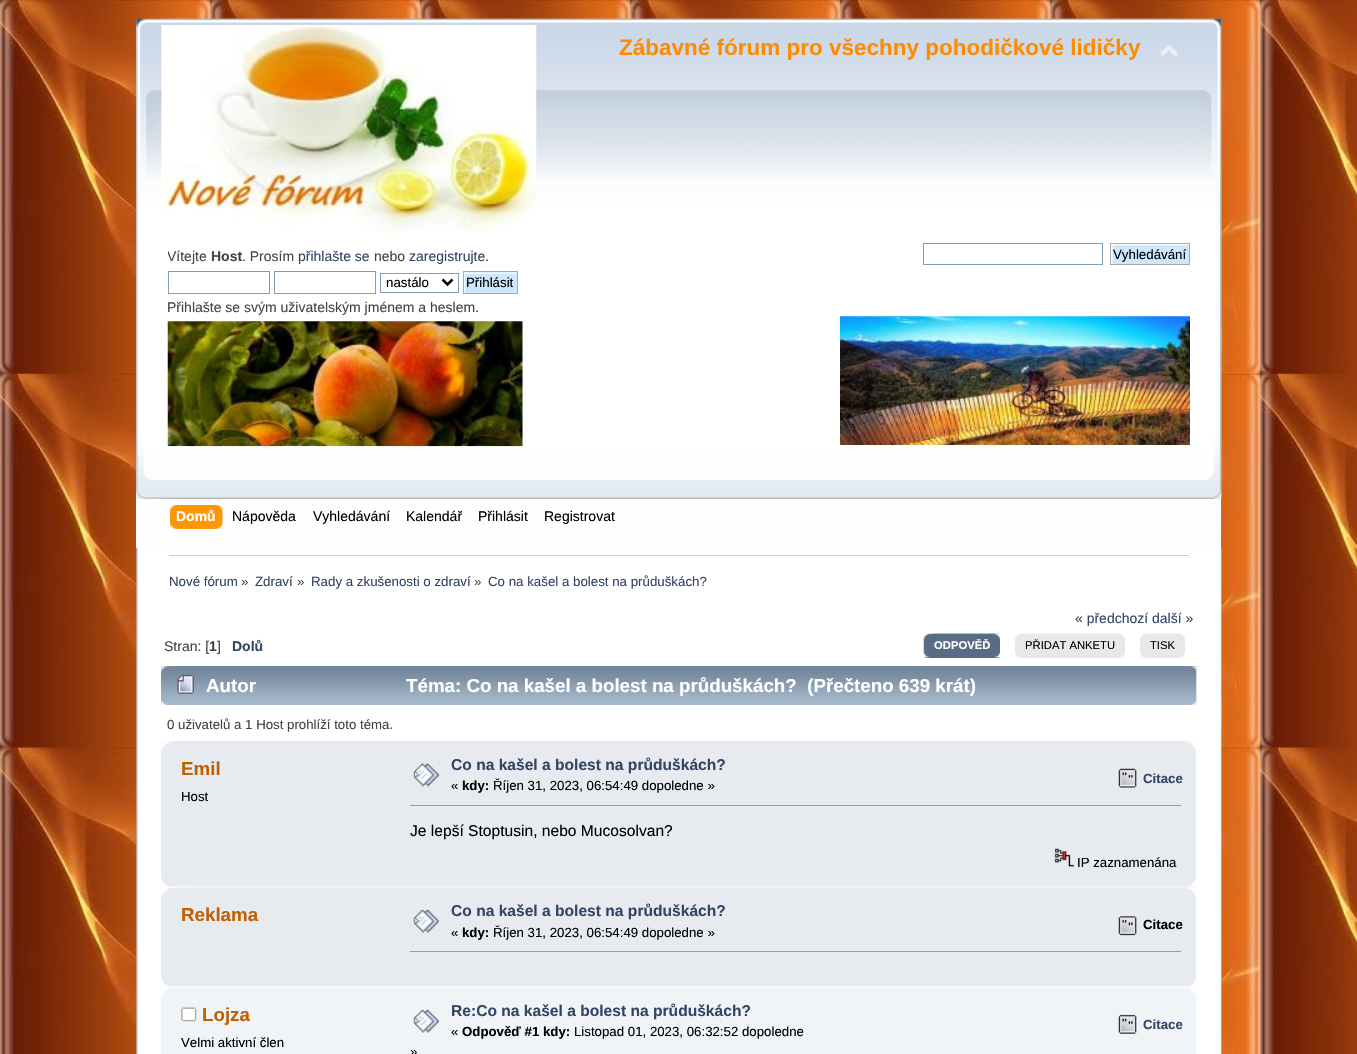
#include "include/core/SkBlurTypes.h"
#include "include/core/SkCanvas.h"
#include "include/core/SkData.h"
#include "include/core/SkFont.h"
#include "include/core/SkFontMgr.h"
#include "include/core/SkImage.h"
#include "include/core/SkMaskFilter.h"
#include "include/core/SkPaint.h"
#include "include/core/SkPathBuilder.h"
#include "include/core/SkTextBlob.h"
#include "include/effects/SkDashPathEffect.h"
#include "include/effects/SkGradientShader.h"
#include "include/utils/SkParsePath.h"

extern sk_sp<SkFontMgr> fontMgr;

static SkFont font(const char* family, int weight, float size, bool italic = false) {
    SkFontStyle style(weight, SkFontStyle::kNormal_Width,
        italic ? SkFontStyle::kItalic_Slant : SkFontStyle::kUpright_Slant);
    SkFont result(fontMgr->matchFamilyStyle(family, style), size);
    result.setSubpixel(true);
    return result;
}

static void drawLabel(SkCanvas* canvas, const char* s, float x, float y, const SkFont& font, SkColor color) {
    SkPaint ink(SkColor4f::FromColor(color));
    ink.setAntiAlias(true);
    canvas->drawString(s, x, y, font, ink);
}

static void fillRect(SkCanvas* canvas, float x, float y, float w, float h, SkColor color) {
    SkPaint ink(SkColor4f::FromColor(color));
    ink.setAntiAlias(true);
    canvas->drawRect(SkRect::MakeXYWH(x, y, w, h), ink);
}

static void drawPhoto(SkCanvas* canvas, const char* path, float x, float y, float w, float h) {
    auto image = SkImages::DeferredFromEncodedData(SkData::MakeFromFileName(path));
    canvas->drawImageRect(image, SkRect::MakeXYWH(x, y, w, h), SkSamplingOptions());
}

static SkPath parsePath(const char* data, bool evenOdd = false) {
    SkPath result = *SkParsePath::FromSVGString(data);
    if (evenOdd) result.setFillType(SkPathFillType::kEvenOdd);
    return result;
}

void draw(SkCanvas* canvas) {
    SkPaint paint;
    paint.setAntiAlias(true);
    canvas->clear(0xFFFFFFFF);
    drawPhoto(canvas, "assets/img1.png", 0, 0, 1357, 1054);
    fillRect(canvas, 136, 19, 1085, 529, 0xFFFEFEFE);
    drawPhoto(canvas, "assets/img2.png", 136, 18, 1086, 481);
    drawPhoto(canvas, "assets/img3.png", 161, 18, 1061, 481);
    drawPhoto(canvas, "assets/img4.png", 161, 25, 376, 207);
    SkFont font1 = font("Liberation Sans", 700, 22.5f);
    drawLabel(canvas, "Zábavné fórum pro všechny pohodičkové lidičky", 619, 55, font1, 0xFFFF8C00);
    drawPhoto(canvas, "assets/img5.png", 1160, 45, 18, 13);
    canvas->save();
    canvas->clipRect(SkRect::MakeXYWH(168, 243, 511, 78));
    SkFont font2 = font("Liberation Sans", 400, 14);
    drawLabel(canvas, "Vítejte", 167, 261, font2, 0xFF444444);
    canvas->restore();
    SkFont font3 = font("Liberation Sans", 700, 14);
    drawLabel(canvas, "Host", 211, 261, font3, 0xFF444444);
    drawLabel(canvas, ". Prosím", 242, 261, font2, 0xFF444444);
    drawLabel(canvas, "přihlašte se", 298, 261, font2, 0xFF334466);
    drawLabel(canvas, "nebo", 374, 261, font2, 0xFF444444);
    drawLabel(canvas, "zaregistrujte", 409, 261, font2, 0xFF334466);
    drawLabel(canvas, ".", 485, 261, font2, 0xFF444444);
    paint.setStroke(true);
    paint.setStrokeWidth(1);
    paint.setColor(0xFF7F9DB9);
    canvas->drawRect(SkRect::MakeXYWH(168.5f, 271.5f, 101, 22), paint);
    canvas->drawRect(SkRect::MakeXYWH(274.5f, 271.5f, 101, 22), paint);
    canvas->drawRect(SkRect::MakeXYWH(380.5f, 273.5f, 78, 19), paint);
    paint.setStrokeWidth(2.5f);
    paint.setColor(0xFF000000);
    canvas->drawPath(parsePath("M442.5 279.5L447.5 284.5L452.5 279.5"), paint);
    SkFont font4 = font("Liberation Sans", 400, 13.3f);
    drawLabel(canvas, "nastálo", 386, 287, font4, 0xFF000000);
    fillRect(canvas, 464, 272, 53, 1, 0xFFCDE7FF);
    drawPhoto(canvas, "assets/img6.png", 464, 272, 53, 21);
    paint.setStrokeWidth(1);
    paint.setColor(0xFFAAAAAA);
    canvas->drawRect(SkRect::MakeXYWH(463.5f, 271.5f, 54, 22), paint);
    drawLabel(canvas, "Přihlásit", 466, 287, font4, 0xFF000000);
    drawLabel(canvas, "Přihlašte se svým uživatelským jménem a heslem.", 167, 312, font2, 0xFF444444);
    drawPhoto(canvas, "assets/img7.png", 167, 321, 356, 126);
    paint.setColor(0xFF7F9DB9);
    canvas->drawRect(SkRect::MakeXYWH(923.5f, 243.5f, 179, 21), paint);
    drawPhoto(canvas, "assets/img8.png", 1111, 244, 78, 20);
    paint.setColor(0xFFAAAAAA);
    canvas->drawRect(SkRect::MakeXYWH(1110.5f, 243.5f, 79, 21), paint);
    drawLabel(canvas, "Vyhledávání", 1113, 259, font4, 0xFF000000);
    drawPhoto(canvas, "assets/img9.png", 840, 316, 350, 129);
    drawPhoto(canvas, "assets/img10.png", 176, 505, 47, 24);
    drawPhoto(canvas, "assets/img11.png", 170, 505, 47, 24);
    drawLabel(canvas, "Domů", 176, 521, font3, 0xFFFFFFFF);
    drawLabel(canvas, "Nápověda", 232, 521, font2, 0xFF000000);
    drawLabel(canvas, "Vyhledávání", 313, 521, font2, 0xFF000000);
    drawLabel(canvas, "Kalendář", 406, 521, font2, 0xFF000000);
    drawLabel(canvas, "Přihlásit", 478, 521, font2, 0xFF000000);
    drawLabel(canvas, "Registrovat", 544, 521, font2, 0xFF000000);
    drawPhoto(canvas, "assets/img12.png", 136, 547, 1086, 507);
    drawPhoto(canvas, "assets/img13.png", 1220, 547, 2, 507);
    fillRect(canvas, 169, 555, 1020, 1, 0xFFCCCCCC);
    drawLabel(canvas, "Nové fórum", 169, 586, font4, 0xFF334466);
    drawLabel(canvas, "»", 241, 586, font4, 0xFF444444);
    drawLabel(canvas, "Zdraví", 255, 586, font4, 0xFF334466);
    drawLabel(canvas, "»", 297, 586, font4, 0xFF444444);
    drawLabel(canvas, "Rady a zkušenosti o zdraví", 311, 586, font4, 0xFF334466);
    drawLabel(canvas, "»", 474, 586, font4, 0xFF444444);
    drawLabel(canvas, "Co na kašel a bolest na průduškách?", 488, 586, font4, 0xFF334466);
    drawLabel(canvas, "« předchozí další »", 1075, 623, font2, 0xFF334466);
    drawLabel(canvas, "Stran: [", 164, 651, font2, 0xFF444444);
    drawLabel(canvas, "1", 209, 651, font3, 0xFF444444);
    drawLabel(canvas, "]", 217, 651, font2, 0xFF444444);
    drawLabel(canvas, "Dolů", 232, 651, font3, 0xFF334466);
    fillRect(canvas, 924, 657, 76, 1, 0xFF5A6C85);
    drawPhoto(canvas, "assets/img14.png", 923, 633, 77, 25);
    drawPhoto(canvas, "assets/img15.png", 933, 633, 67, 25);
    SkFont font5 = font("Liberation Sans", 700, 11.25f);
    drawLabel(canvas, "ODPOVĚĎ", 934, 649, font5, 0xFFFFFFFF);
    fillRect(canvas, 1015, 657, 110, 1, 0xFFE8E8E8);
    drawPhoto(canvas, "assets/img16.png", 1015, 633, 110, 25);
    drawPhoto(canvas, "assets/img17.png", 1025, 633, 100, 25);
    SkFont font6 = font("Liberation Sans", 400, 11.25f);
    drawLabel(canvas, "PŘIDAT ANKETU", 1025, 649, font6, 0xFF000000);
    fillRect(canvas, 1140, 657, 45, 1, 0xFFE8E8E8);
    drawPhoto(canvas, "assets/img18.png", 1140, 633, 45, 25);
    drawPhoto(canvas, "assets/img19.png", 1150, 633, 35, 25);
    drawLabel(canvas, "TISK", 1150, 649, font6, 0xFF000000);
    fillRect(canvas, 161, 666, 1035, 39, 0xFF99ABBF);
    drawPhoto(canvas, "assets/img20.png", 161, 666, 1036, 39);
    drawPhoto(canvas, "assets/img21.png", 173, 666, 1024, 39);
    drawPhoto(canvas, "assets/img22.png", 177, 674, 17, 20);
    SkFont font7 = font("Liberation Sans", 700, 18.75f);
    drawLabel(canvas, "Autor", 206, 692, font7, 0xFFFFFFFF);
    drawLabel(canvas, "Téma: Co na kašel a bolest na průduškách?  (Přečteno 639 krát)", 406, 692, font7, 0xFFFFFFFF);
    SkFont font8 = font("Liberation Sans", 400, 13.25f);
    drawLabel(canvas, "0 uživatelů a 1 Host prohlíží toto téma.", 167, 729, font8, 0xFF444444);
    fillRect(canvas, 161, 741, 1035, 145, 0xFFE7EAEF);
    drawPhoto(canvas, "assets/img23.png", 161, 741, 1036, 14);
    drawPhoto(canvas, "assets/img24.png", 1186, 741, 11, 14);
    drawLabel(canvas, "Emil", 181, 775, font7, 0xFFC06002);
    drawLabel(canvas, "Host", 181, 801, font8, 0xFF000000);
    drawPhoto(canvas, "assets/img25.png", 413, 763, 26, 24);
    SkFont font9 = font("Liberation Sans", 700, 15.6f);
    drawLabel(canvas, "Co na kašel a bolest na průduškách?", 451, 770, font9, 0xFF334466);
    drawLabel(canvas, "«", 451, 790, font8, 0xFF000000);
    SkFont font10 = font("Liberation Sans", 700, 13.25f);
    drawLabel(canvas, "kdy:", 462, 790, font10, 0xFF000000);
    drawLabel(canvas, "Říjen 31, 2023, 06:54:49 dopoledne »", 493, 790, font8, 0xFF000000);
    drawPhoto(canvas, "assets/img26.png", 1118, 768, 19, 20);
    drawLabel(canvas, "Citace", 1143, 783, font10, 0xFF334466);
    fillRect(canvas, 410, 805, 771, 1, 0xFF9999AA);
    SkFont font11 = font("Liberation Sans", 400, 15.6f);
    drawLabel(canvas, "Je lepší Stoptusin, nebo Mucosolvan?", 410, 836, font11, 0xFF000000);
    drawPhoto(canvas, "assets/img27.png", 1054, 848, 20, 19);
    drawLabel(canvas, "IP zaznamenána", 1077, 867, font8, 0xFF000000);
    drawPhoto(canvas, "assets/img28.png", 161, 873, 1036, 14);
    drawPhoto(canvas, "assets/img29.png", 187, 873, 1010, 14);
    fillRect(canvas, 161, 888, 1035, 98, 0xFFE7EAEF);
    drawPhoto(canvas, "assets/img30.png", 161, 887, 1036, 14);
    drawPhoto(canvas, "assets/img31.png", 186, 887, 1011, 14);
    drawLabel(canvas, "Reklama", 181, 921, font7, 0xFFC06002);
    drawPhoto(canvas, "assets/img32.png", 413, 909, 26, 24);
    drawLabel(canvas, "Co na kašel a bolest na průduškách?", 451, 916, font9, 0xFF334466);
    drawLabel(canvas, "«", 451, 937, font8, 0xFF000000);
    drawLabel(canvas, "kdy:", 462, 937, font10, 0xFF000000);
    drawLabel(canvas, "Říjen 31, 2023, 06:54:49 dopoledne »", 493, 937, font8, 0xFF000000);
    drawPhoto(canvas, "assets/img33.png", 1118, 916, 19, 20);
    drawLabel(canvas, "Citace", 1143, 929, font10, 0xFF000000);
    fillRect(canvas, 410, 951, 771, 1, 0xFF9999AA);
    drawPhoto(canvas, "assets/img28.png", 161, 973, 1036, 14);
    drawPhoto(canvas, "assets/img29.png", 187, 973, 1010, 14);
    fillRect(canvas, 161, 988, 1035, 66, 0xFFF0F4F7);
    drawPhoto(canvas, "assets/img34.png", 161, 987, 1036, 14);
    drawPhoto(canvas, "assets/img35.png", 1187, 987, 9, 10);
    drawPhoto(canvas, "assets/img36.png", 181, 1007, 16, 15);
    drawLabel(canvas, "Lojza", 202, 1021, font7, 0xFFC06002);
    drawLabel(canvas, "Velmi aktivní člen", 181, 1047, font8, 0xFF000000);
    drawPhoto(canvas, "assets/img37.png", 413, 1009, 26, 24);
    drawLabel(canvas, "Re:Co na kašel a bolest na průduškách?", 451, 1016, font9, 0xFF334466);
    drawLabel(canvas, "«", 451, 1036, font8, 0xFF000000);
    drawLabel(canvas, "Odpověď #1 kdy:", 462, 1036, font10, 0xFF000000);
    drawLabel(canvas, "Listopad 01, 2023, 06:32:52 dopoledne", 574, 1036, font8, 0xFF000000);
    drawLabel(canvas, "»", 410, 1056, font8, 0xFF000000);
    drawPhoto(canvas, "assets/img38.png", 1118, 1014, 19, 20);
    drawLabel(canvas, "Citace", 1143, 1029, font10, 0xFF334466);
}
